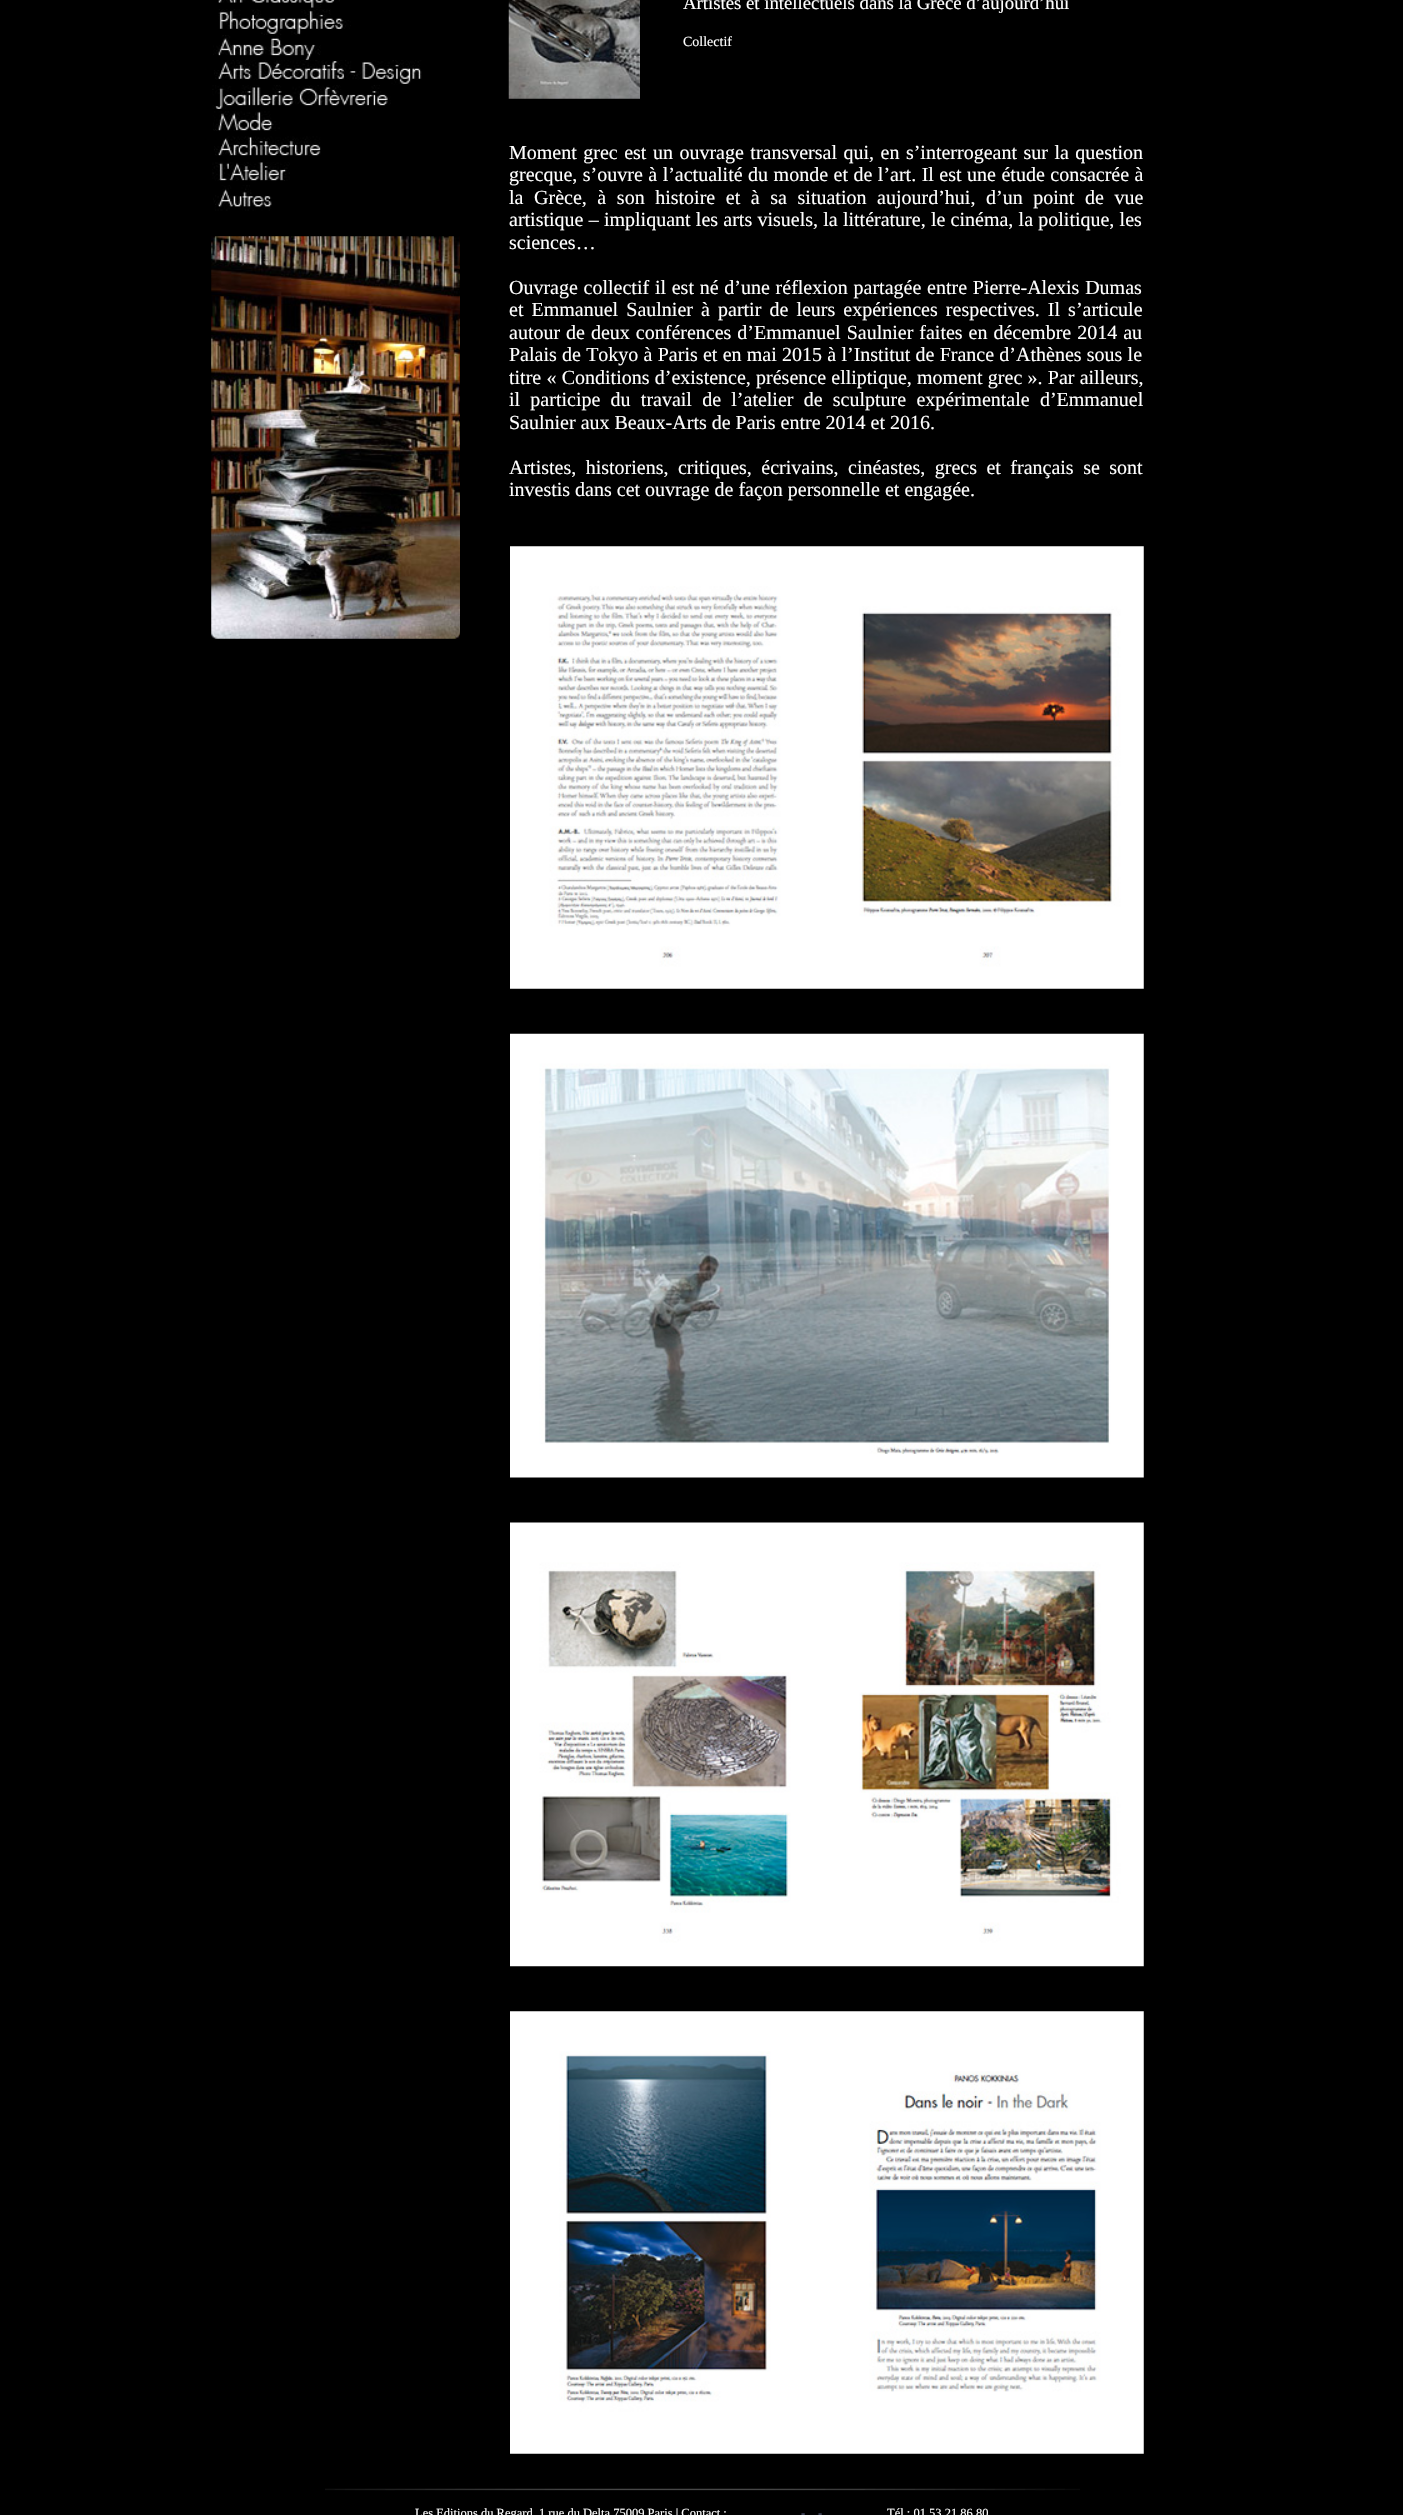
#include "include/core/SkBlurTypes.h"
#include "include/core/SkCanvas.h"
#include "include/core/SkData.h"
#include "include/core/SkFont.h"
#include "include/core/SkFontMgr.h"
#include "include/core/SkImage.h"
#include "include/core/SkMaskFilter.h"
#include "include/core/SkPaint.h"
#include "include/core/SkPathBuilder.h"
#include "include/core/SkTextBlob.h"
#include "include/effects/SkDashPathEffect.h"
#include "include/effects/SkGradientShader.h"
#include "include/utils/SkParsePath.h"

extern sk_sp<SkFontMgr> fontMgr;

static SkFont font(const char* family, int weight, float size, bool italic = false) {
    SkFontStyle style(weight, SkFontStyle::kNormal_Width,
        italic ? SkFontStyle::kItalic_Slant : SkFontStyle::kUpright_Slant);
    SkFont result(fontMgr->matchFamilyStyle(family, style), size);
    result.setSubpixel(true);
    return result;
}

static void drawLabel(SkCanvas* canvas, const char* s, float x, float y, const SkFont& font, SkColor color) {
    SkPaint ink(SkColor4f::FromColor(color));
    ink.setAntiAlias(true);
    canvas->drawString(s, x, y, font, ink);
}

static void drawTracked(SkCanvas* canvas, const char* s, float x, float y, const SkFont& font, const SkPaint& ink, float letter, float word) {
    std::vector<SkGlyphID> glyphs(font.countText(s, strlen(s), SkTextEncoding::kUTF8));
    std::vector<float> xs(glyphs.size());
    font.textToGlyphs(s, strlen(s), SkTextEncoding::kUTF8, glyphs);
    font.getXPos(glyphs, xs, x);
    float extra = 0;
    for (size_t i = 0; i < glyphs.size(); i++) {
        xs[i] += extra;
        extra += letter + word * (glyphs[i] == font.unicharToGlyph(' '));
    }
    canvas->drawTextBlob(SkTextBlob::MakeFromPosHGlyphs(glyphs, xs, y, font), 0, 0, ink);
}

static void drawPhoto(SkCanvas* canvas, const char* path, float x, float y, float w, float h) {
    auto image = SkImages::DeferredFromEncodedData(SkData::MakeFromFileName(path));
    canvas->drawImageRect(image, SkRect::MakeXYWH(x, y, w, h), SkSamplingOptions());
}

void draw(SkCanvas* canvas) {
    SkPaint paint;
    paint.setAntiAlias(true);
    canvas->clear(0xFF000000);
    drawPhoto(canvas, "assets/img1.png", 218, 0, 122, 8);
    drawPhoto(canvas, "assets/img2.png", 218, 9, 133, 26);
    drawPhoto(canvas, "assets/img3.png", 213, 35, 108, 25);
    drawPhoto(canvas, "assets/img4.png", 214, 60, 208, 25);
    drawPhoto(canvas, "assets/img5.png", 212, 85, 179, 24);
    drawPhoto(canvas, "assets/img6.png", 213, 111, 67, 20);
    drawPhoto(canvas, "assets/img7.png", 214, 136, 107, 20);
    drawPhoto(canvas, "assets/img8.png", 212, 162, 78, 19);
    drawPhoto(canvas, "assets/img9.png", 213, 185, 59, 26);
    drawPhoto(canvas, "assets/img10.png", 211, 236, 249, 403);
    drawPhoto(canvas, "assets/img11.png", 508, 0, 132, 99);
    SkFont font1 = font("Liberation Serif", 400, 18.75f);
    drawLabel(canvas, "Artistes et intellectuels dans la Grèce d’aujourd’hui", 683, 9, font1, 0xFFFFFFFF);
    SkFont font2 = font("Liberation Serif", 400, 14);
    drawLabel(canvas, "Collectif", 683, 46, font2, 0xFFFFFFFF);
    SkFont font3 = font("Liberation Serif", 400, 20);
    paint.setColor(0xFFFFFFFF);
    drawTracked(canvas, "Moment grec est un ouvrage transversal qui, en s’interrogeant sur la question", 509, 159, font3, paint, 0, 1.5f);
    drawTracked(canvas, "grecque, s’ouvre à l’actualité du monde et de l’art. Il est une étude consacrée à", 509, 181, font3, paint, 0, 0.5f);
    drawTracked(canvas, "la Grèce, à son histoire et à sa situation aujourd’hui, d’un point de vue", 509, 204, font3, paint, 0, 5.6f);
    drawTracked(canvas, "artistique – impliquant les arts visuels, la littérature, le cinéma, la politique, les", 509, 226, font3, paint, 0, 0.25f);
    drawLabel(canvas, "sciences…", 509, 249, font3, 0xFFFFFFFF);
    drawTracked(canvas, "Ouvrage collectif il est né d’une réflexion partagée entre Pierre-Alexis Dumas", 509, 294, font3, paint, 0, 0.75f);
    drawTracked(canvas, "et Emmanuel Saulnier à partir de leurs expériences respectives. Il s’articule", 509, 316, font3, paint, 0, 3.1f);
    drawTracked(canvas, "autour de deux conférences d’Emmanuel Saulnier faites en décembre 2014 au", 509, 339, font3, paint, 0, 1);
    drawTracked(canvas, "Palais de Tokyo à Paris et en mai 2015 à l’Institut de France d’Athènes sous le", 509, 361, font3, paint, 0, 0.25f);
    drawTracked(canvas, "titre « Conditions d’existence, présence elliptique, moment grec ». Par ailleurs,", 509, 384, font3, paint, 0, 0.25f);
    drawTracked(canvas, "il participe du travail de l’atelier de sculpture expérimentale d’Emmanuel", 509, 406, font3, paint, 0, 5.25f);
    drawLabel(canvas, "Saulnier aux Beaux-Arts de Paris entre 2014 et 2016.", 509, 429, font3, 0xFFFFFFFF);
    drawTracked(canvas, "Artistes, historiens, critiques, écrivains, cinéastes, grecs et français se sont", 509, 474, font3, paint, 0, 4.5f);
    drawLabel(canvas, "investis dans cet ouvrage de façon personnelle et engagée.", 509, 496, font3, 0xFFFFFFFF);
    drawPhoto(canvas, "assets/img12.png", 510, 546, 634, 443);
    drawPhoto(canvas, "assets/img13.png", 510, 1033, 634, 445);
    drawPhoto(canvas, "assets/img14.png", 510, 1522, 634, 445);
    drawPhoto(canvas, "assets/img15.png", 510, 2011, 634, 443);
    drawPhoto(canvas, "assets/img16.png", 325, 2488, 755, 3);
    SkFont font4 = font("Liberation Serif", 400, 12.5f);
    drawLabel(canvas, "Les Editions du Regard, 1 rue du Delta 75009 Paris | Contact :", 415, 2517, font4, 0xFFFFFFFF);
    drawLabel(canvas, "-", 801, 2517, font4, 0xFF646B8D);
    drawLabel(canvas, "-", 818, 2517, font4, 0xFF646B8D);
    drawLabel(canvas, "Tél : 01 53 21 86 80", 887, 2517, font4, 0xFFFFFFFF);
}
